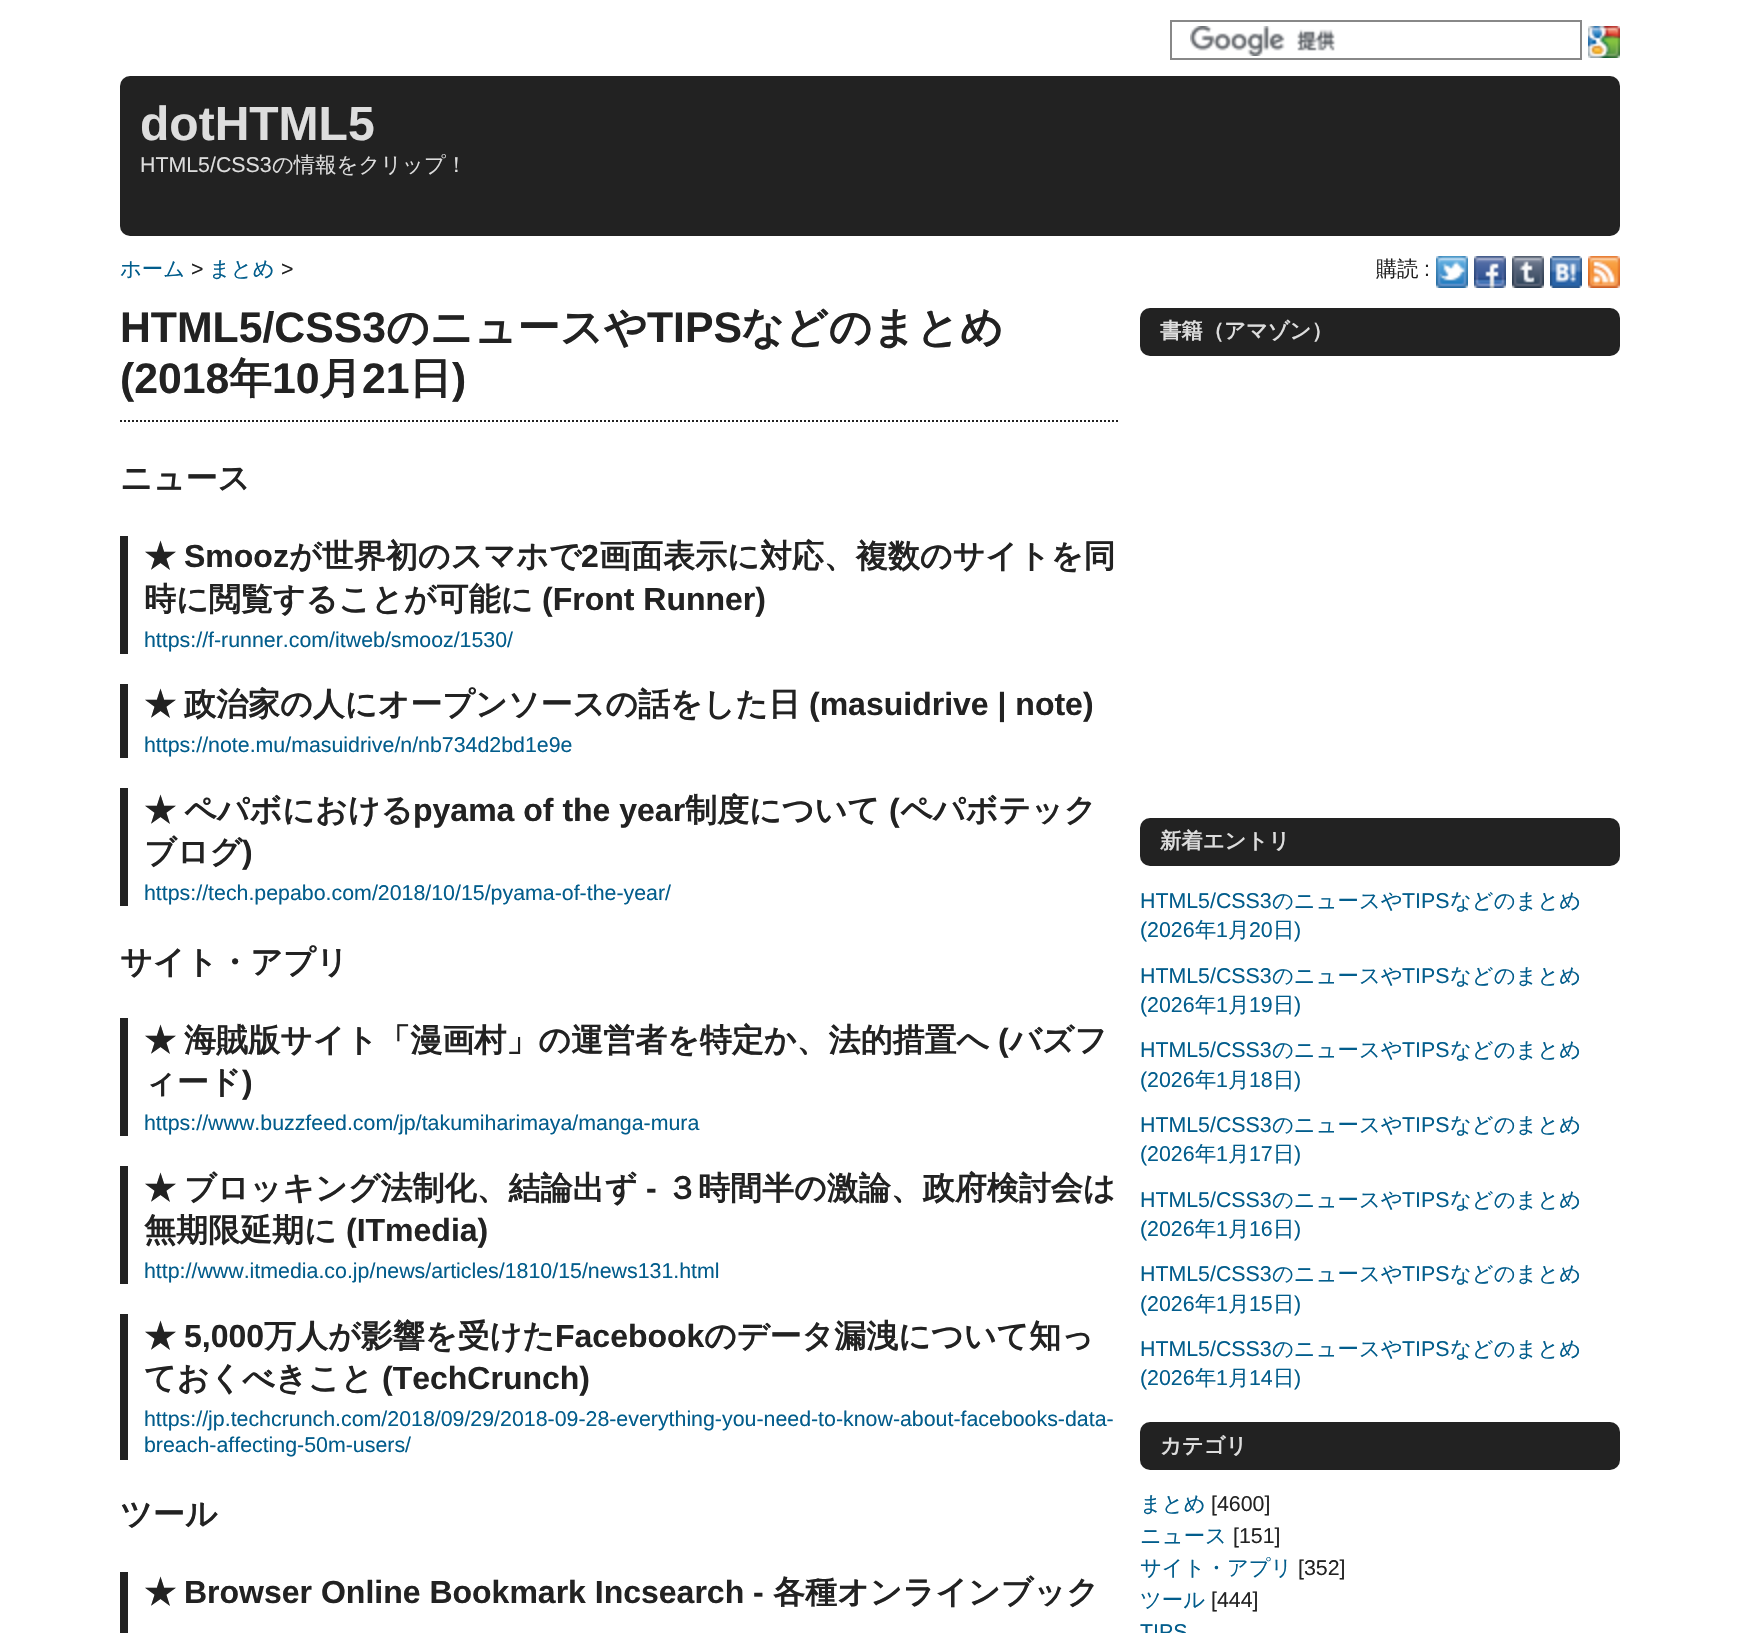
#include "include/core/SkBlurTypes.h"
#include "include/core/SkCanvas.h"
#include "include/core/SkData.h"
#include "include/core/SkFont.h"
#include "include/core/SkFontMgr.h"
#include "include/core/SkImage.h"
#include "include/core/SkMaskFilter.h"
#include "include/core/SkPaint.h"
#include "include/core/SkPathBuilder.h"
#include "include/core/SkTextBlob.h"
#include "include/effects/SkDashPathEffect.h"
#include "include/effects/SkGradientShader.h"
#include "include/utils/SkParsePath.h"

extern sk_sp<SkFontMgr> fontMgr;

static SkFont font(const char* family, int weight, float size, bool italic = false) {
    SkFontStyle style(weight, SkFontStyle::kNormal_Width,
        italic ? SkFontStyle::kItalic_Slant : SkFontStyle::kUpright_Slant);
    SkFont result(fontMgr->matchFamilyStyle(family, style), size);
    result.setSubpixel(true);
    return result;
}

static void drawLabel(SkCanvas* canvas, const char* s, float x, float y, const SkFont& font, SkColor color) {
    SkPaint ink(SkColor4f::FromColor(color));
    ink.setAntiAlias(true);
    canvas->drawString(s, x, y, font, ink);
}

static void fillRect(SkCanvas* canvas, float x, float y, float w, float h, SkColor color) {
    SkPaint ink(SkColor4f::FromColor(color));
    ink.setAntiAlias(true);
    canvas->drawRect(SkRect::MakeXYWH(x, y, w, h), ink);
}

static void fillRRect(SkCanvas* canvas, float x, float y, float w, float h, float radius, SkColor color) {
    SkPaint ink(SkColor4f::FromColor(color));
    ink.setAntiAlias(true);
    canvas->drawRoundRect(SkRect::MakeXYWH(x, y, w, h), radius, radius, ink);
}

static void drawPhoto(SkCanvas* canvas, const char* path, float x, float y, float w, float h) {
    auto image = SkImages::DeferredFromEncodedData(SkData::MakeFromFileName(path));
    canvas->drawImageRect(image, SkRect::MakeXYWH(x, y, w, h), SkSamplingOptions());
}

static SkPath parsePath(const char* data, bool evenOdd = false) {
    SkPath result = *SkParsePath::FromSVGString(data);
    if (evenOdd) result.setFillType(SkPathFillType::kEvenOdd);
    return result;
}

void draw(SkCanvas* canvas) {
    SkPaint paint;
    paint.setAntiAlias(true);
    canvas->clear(0xFFFFFFFF);
    drawPhoto(canvas, "assets/img1.png", 1190, 26, 146, 30);
    paint.setStroke(true);
    paint.setStrokeWidth(2);
    paint.setColor(0xFF888888);
    canvas->drawRect(SkRect::MakeXYWH(1171, 21, 410, 38), paint);
    drawPhoto(canvas, "assets/img2.png", 1588, 26, 32, 32);
    fillRRect(canvas, 120, 76, 1500, 160, 10, 0xFF222222);
    SkFont font1 = font("Liberation Sans", 700, 48);
    drawLabel(canvas, "dotHTML5", 140, 140, font1, 0xFFDDDDDD);
    SkFont font2 = font("Liberation Sans", 400, 21.35f);
    drawLabel(canvas, "HTML5/CSS3", 140, 172, font2, 0xFFDDDDDD);
    SkFont font3 = font("WenQuanYi Zen Hei", 500, 21.35f);
    drawLabel(canvas, "の情報をクリップ！", 272, 172, font3, 0xFFDDDDDD);
    drawLabel(canvas, "ホーム", 120, 276, font3, 0xFF025D8C);
    drawLabel(canvas, ">", 191, 276, font2, 0xFF222222);
    drawLabel(canvas, "まとめ", 209, 276, font3, 0xFF025D8C);
    drawLabel(canvas, ">", 281, 276, font2, 0xFF222222);
    SkFont font4 = font("Liberation Sans", 700, 42.75f);
    drawLabel(canvas, "HTML5/CSS3", 120, 342, font4, 0xFF222222);
    SkFont font5 = font("WenQuanYi Zen Hei", 700, 42.75f);
    drawLabel(canvas, "のニュースや", 386, 342, font5, 0xFF222222);
    drawLabel(canvas, "TIPS", 647, 342, font4, 0xFF222222);
    drawLabel(canvas, "などのまとめ", 741, 342, font5, 0xFF222222);
    drawLabel(canvas, "(2018", 120, 393, font4, 0xFF222222);
    drawLabel(canvas, "年", 229, 393, font5, 0xFF222222);
    drawLabel(canvas, "10", 272, 393, font4, 0xFF222222);
    drawLabel(canvas, "月", 319, 393, font5, 0xFF222222);
    drawLabel(canvas, "21", 362, 393, font4, 0xFF222222);
    drawLabel(canvas, "日", 409, 393, font5, 0xFF222222);
    drawLabel(canvas, ")", 452, 393, font4, 0xFF222222);
    paint.setColor(0xFF222222);
    paint.setPathEffect(SkDashPathEffect::Make({{2, 2}}, 0));
    canvas->drawPath(parsePath("M120 421H1120"), paint);
    paint.setPathEffect(nullptr);
    SkFont font6 = font("WenQuanYi Zen Hei", 700, 32);
    drawLabel(canvas, "ニュース", 120, 489, font6, 0xFF222222);
    fillRect(canvas, 120, 536, 8, 118, 0xFF222222);
    drawLabel(canvas, "★", 144, 567, font6, 0xFF222222);
    SkFont font7 = font("Liberation Sans", 700, 32);
    drawLabel(canvas, "Smooz", 184, 567, font7, 0xFF222222);
    drawLabel(canvas, "が世界初のスマホで", 289, 567, font6, 0xFF222222);
    drawLabel(canvas, "2", 581, 567, font7, 0xFF222222);
    drawLabel(canvas, "画面表示に対応、複数のサイトを同", 599, 567, font6, 0xFF222222);
    drawLabel(canvas, "時に閲覧することが可能に", 144, 610, font6, 0xFF222222);
    drawLabel(canvas, "(Front Runner)", 542, 610, font7, 0xFF222222);
    drawLabel(canvas, "https://f-runner.com/itweb/smooz/1530/", 144, 647, font2, 0xFF025D8C);
    fillRect(canvas, 120, 684, 8, 74, 0xFF222222);
    drawLabel(canvas, "★", 144, 715, font6, 0xFF222222);
    drawLabel(canvas, "政治家の人にオープンソースの話をした日", 184, 715, font6, 0xFF222222);
    drawLabel(canvas, "(masuidrive | note)", 809, 715, font7, 0xFF222222);
    drawLabel(canvas, "https://note.mu/masuidrive/n/nb734d2bd1e9e", 144, 752, font2, 0xFF025D8C);
    fillRect(canvas, 120, 788, 8, 118, 0xFF222222);
    drawLabel(canvas, "★", 144, 821, font6, 0xFF222222);
    drawLabel(canvas, "ペパボにおける", 184, 821, font6, 0xFF222222);
    drawLabel(canvas, "pyama of the year", 413, 821, font7, 0xFF222222);
    drawLabel(canvas, "制度について", 685, 821, font6, 0xFF222222);
    drawLabel(canvas, "(", 889, 821, font7, 0xFF222222);
    drawLabel(canvas, "ペパボテック", 900, 821, font6, 0xFF222222);
    drawLabel(canvas, "ブログ", 144, 863, font6, 0xFF222222);
    drawLabel(canvas, ")", 242, 863, font7, 0xFF222222);
    drawLabel(canvas, "https://tech.pepabo.com/2018/10/15/pyama-of-the-year/", 144, 900, font2, 0xFF025D8C);
    drawLabel(canvas, "サイト・アプリ", 120, 973, font6, 0xFF222222);
    fillRect(canvas, 120, 1018, 8, 118, 0xFF222222);
    drawLabel(canvas, "★", 144, 1051, font6, 0xFF222222);
    drawLabel(canvas, "海賊版サイト「漫画村」の運営者を特定か、法的措置へ", 184, 1051, font6, 0xFF222222);
    drawLabel(canvas, "(", 998, 1051, font7, 0xFF222222);
    drawLabel(canvas, "バズフ", 1009, 1051, font6, 0xFF222222);
    drawLabel(canvas, "ィード", 144, 1093, font6, 0xFF222222);
    drawLabel(canvas, ")", 242, 1093, font7, 0xFF222222);
    drawLabel(canvas, "https://www.buzzfeed.com/jp/takumiharimaya/manga-mura", 144, 1130, font2, 0xFF025D8C);
    fillRect(canvas, 120, 1166, 8, 118, 0xFF222222);
    drawLabel(canvas, "★", 144, 1199, font6, 0xFF222222);
    drawLabel(canvas, "ブロッキング法制化、結論出ず", 184, 1199, font6, 0xFF222222);
    drawLabel(canvas, "-", 646, 1199, font7, 0xFF222222);
    drawLabel(canvas, "３時間半の激論、政府検討会は", 666, 1199, font6, 0xFF222222);
    drawLabel(canvas, "無期限延期に", 144, 1241, font6, 0xFF222222);
    drawLabel(canvas, "(ITmedia)", 346, 1241, font7, 0xFF222222);
    drawLabel(canvas, "http://www.itmedia.co.jp/news/articles/1810/15/news131.html", 144, 1278, font2, 0xFF025D8C);
    fillRect(canvas, 120, 1314, 8, 146, 0xFF222222);
    drawLabel(canvas, "★", 144, 1347, font6, 0xFF222222);
    drawLabel(canvas, "5,000", 184, 1347, font7, 0xFF222222);
    drawLabel(canvas, "万人が影響を受けた", 264, 1347, font6, 0xFF222222);
    drawLabel(canvas, "Facebook", 555, 1347, font7, 0xFF222222);
    drawLabel(canvas, "のデータ漏洩について知っ", 704, 1347, font6, 0xFF222222);
    drawLabel(canvas, "ておくべきこと", 144, 1389, font6, 0xFF222222);
    drawLabel(canvas, "(TechCrunch)", 382, 1389, font7, 0xFF222222);
    drawLabel(canvas, "https://jp.techcrunch.com/2018/09/29/2018-09-28-everything-you-need-to-know-about-facebooks-data-", 144, 1426, font2, 0xFF025D8C);
    drawLabel(canvas, "breach-affecting-50m-users/", 144, 1452, font2, 0xFF025D8C);
    drawLabel(canvas, "ツール", 120, 1525, font6, 0xFF222222);
    fillRect(canvas, 120, 1572, 8, 61, 0xFF222222);
    drawLabel(canvas, "★", 144, 1603, font6, 0xFF222222);
    drawLabel(canvas, "Browser Online Bookmark Incsearch -", 184, 1603, font7, 0xFF222222);
    drawLabel(canvas, "各種オンラインブック", 773, 1603, font6, 0xFF222222);
    drawLabel(canvas, "購読", 1376, 276, font3, 0xFF222222);
    drawLabel(canvas, ":", 1424, 276, font2, 0xFF222222);
    drawPhoto(canvas, "assets/img3.png", 1436, 256, 32, 32);
    drawPhoto(canvas, "assets/img4.png", 1474, 256, 32, 32);
    drawPhoto(canvas, "assets/img5.png", 1512, 256, 32, 32);
    drawPhoto(canvas, "assets/img6.png", 1550, 256, 32, 32);
    drawPhoto(canvas, "assets/img7.png", 1588, 256, 32, 32);
    fillRRect(canvas, 1140, 308, 480, 48, 10, 0xFF222222);
    SkFont font8 = font("WenQuanYi Zen Hei", 700, 21.35f);
    drawLabel(canvas, "書籍（アマゾン）", 1160, 338, font8, 0xFFDDDDDD);
    fillRRect(canvas, 1140, 818, 480, 48, 10, 0xFF222222);
    drawLabel(canvas, "新着エントリ", 1160, 848, font8, 0xFFDDDDDD);
    drawLabel(canvas, "HTML5/CSS3", 1140, 908, font2, 0xFF025D8C);
    drawLabel(canvas, "のニュースや", 1272, 908, font3, 0xFF025D8C);
    drawLabel(canvas, "TIPS", 1402, 908, font2, 0xFF025D8C);
    drawLabel(canvas, "などのまとめ", 1450, 908, font3, 0xFF025D8C);
    drawLabel(canvas, "(2026", 1140, 937, font2, 0xFF025D8C);
    drawLabel(canvas, "年", 1195, 937, font3, 0xFF025D8C);
    drawLabel(canvas, "1", 1216, 937, font2, 0xFF025D8C);
    drawLabel(canvas, "月", 1228, 937, font3, 0xFF025D8C);
    drawLabel(canvas, "20", 1249, 937, font2, 0xFF025D8C);
    drawLabel(canvas, "日", 1273, 937, font3, 0xFF025D8C);
    drawLabel(canvas, ")", 1294, 937, font2, 0xFF025D8C);
    drawLabel(canvas, "HTML5/CSS3", 1140, 983, font2, 0xFF025D8C);
    drawLabel(canvas, "のニュースや", 1272, 983, font3, 0xFF025D8C);
    drawLabel(canvas, "TIPS", 1402, 983, font2, 0xFF025D8C);
    drawLabel(canvas, "などのまとめ", 1450, 983, font3, 0xFF025D8C);
    drawLabel(canvas, "(2026", 1140, 1012, font2, 0xFF025D8C);
    drawLabel(canvas, "年", 1195, 1012, font3, 0xFF025D8C);
    drawLabel(canvas, "1", 1216, 1012, font2, 0xFF025D8C);
    drawLabel(canvas, "月", 1228, 1012, font3, 0xFF025D8C);
    drawLabel(canvas, "19", 1249, 1012, font2, 0xFF025D8C);
    drawLabel(canvas, "日", 1273, 1012, font3, 0xFF025D8C);
    drawLabel(canvas, ")", 1294, 1012, font2, 0xFF025D8C);
    drawLabel(canvas, "HTML5/CSS3", 1140, 1057, font2, 0xFF025D8C);
    drawLabel(canvas, "のニュースや", 1272, 1057, font3, 0xFF025D8C);
    drawLabel(canvas, "TIPS", 1402, 1057, font2, 0xFF025D8C);
    drawLabel(canvas, "などのまとめ", 1450, 1057, font3, 0xFF025D8C);
    drawLabel(canvas, "(2026", 1140, 1087, font2, 0xFF025D8C);
    drawLabel(canvas, "年", 1195, 1087, font3, 0xFF025D8C);
    drawLabel(canvas, "1", 1216, 1087, font2, 0xFF025D8C);
    drawLabel(canvas, "月", 1228, 1087, font3, 0xFF025D8C);
    drawLabel(canvas, "18", 1249, 1087, font2, 0xFF025D8C);
    drawLabel(canvas, "日", 1273, 1087, font3, 0xFF025D8C);
    drawLabel(canvas, ")", 1294, 1087, font2, 0xFF025D8C);
    drawLabel(canvas, "HTML5/CSS3", 1140, 1132, font2, 0xFF025D8C);
    drawLabel(canvas, "のニュースや", 1272, 1132, font3, 0xFF025D8C);
    drawLabel(canvas, "TIPS", 1402, 1132, font2, 0xFF025D8C);
    drawLabel(canvas, "などのまとめ", 1450, 1132, font3, 0xFF025D8C);
    drawLabel(canvas, "(2026", 1140, 1161, font2, 0xFF025D8C);
    drawLabel(canvas, "年", 1195, 1161, font3, 0xFF025D8C);
    drawLabel(canvas, "1", 1216, 1161, font2, 0xFF025D8C);
    drawLabel(canvas, "月", 1228, 1161, font3, 0xFF025D8C);
    drawLabel(canvas, "17", 1249, 1161, font2, 0xFF025D8C);
    drawLabel(canvas, "日", 1273, 1161, font3, 0xFF025D8C);
    drawLabel(canvas, ")", 1294, 1161, font2, 0xFF025D8C);
    drawLabel(canvas, "HTML5/CSS3", 1140, 1207, font2, 0xFF025D8C);
    drawLabel(canvas, "のニュースや", 1272, 1207, font3, 0xFF025D8C);
    drawLabel(canvas, "TIPS", 1402, 1207, font2, 0xFF025D8C);
    drawLabel(canvas, "などのまとめ", 1450, 1207, font3, 0xFF025D8C);
    drawLabel(canvas, "(2026", 1140, 1236, font2, 0xFF025D8C);
    drawLabel(canvas, "年", 1195, 1236, font3, 0xFF025D8C);
    drawLabel(canvas, "1", 1216, 1236, font2, 0xFF025D8C);
    drawLabel(canvas, "月", 1228, 1236, font3, 0xFF025D8C);
    drawLabel(canvas, "16", 1249, 1236, font2, 0xFF025D8C);
    drawLabel(canvas, "日", 1273, 1236, font3, 0xFF025D8C);
    drawLabel(canvas, ")", 1294, 1236, font2, 0xFF025D8C);
    drawLabel(canvas, "HTML5/CSS3", 1140, 1281, font2, 0xFF025D8C);
    drawLabel(canvas, "のニュースや", 1272, 1281, font3, 0xFF025D8C);
    drawLabel(canvas, "TIPS", 1402, 1281, font2, 0xFF025D8C);
    drawLabel(canvas, "などのまとめ", 1450, 1281, font3, 0xFF025D8C);
    drawLabel(canvas, "(2026", 1140, 1311, font2, 0xFF025D8C);
    drawLabel(canvas, "年", 1195, 1311, font3, 0xFF025D8C);
    drawLabel(canvas, "1", 1216, 1311, font2, 0xFF025D8C);
    drawLabel(canvas, "月", 1228, 1311, font3, 0xFF025D8C);
    drawLabel(canvas, "15", 1249, 1311, font2, 0xFF025D8C);
    drawLabel(canvas, "日", 1273, 1311, font3, 0xFF025D8C);
    drawLabel(canvas, ")", 1294, 1311, font2, 0xFF025D8C);
    drawLabel(canvas, "HTML5/CSS3", 1140, 1356, font2, 0xFF025D8C);
    drawLabel(canvas, "のニュースや", 1272, 1356, font3, 0xFF025D8C);
    drawLabel(canvas, "TIPS", 1402, 1356, font2, 0xFF025D8C);
    drawLabel(canvas, "などのまとめ", 1450, 1356, font3, 0xFF025D8C);
    drawLabel(canvas, "(2026", 1140, 1385, font2, 0xFF025D8C);
    drawLabel(canvas, "年", 1195, 1385, font3, 0xFF025D8C);
    drawLabel(canvas, "1", 1216, 1385, font2, 0xFF025D8C);
    drawLabel(canvas, "月", 1228, 1385, font3, 0xFF025D8C);
    drawLabel(canvas, "14", 1249, 1385, font2, 0xFF025D8C);
    drawLabel(canvas, "日", 1273, 1385, font3, 0xFF025D8C);
    drawLabel(canvas, ")", 1294, 1385, font2, 0xFF025D8C);
    fillRRect(canvas, 1140, 1422, 480, 48, 10, 0xFF222222);
    drawLabel(canvas, "カテゴリ", 1160, 1453, font8, 0xFFDDDDDD);
    drawLabel(canvas, "まとめ", 1140, 1511, font3, 0xFF025D8C);
    drawLabel(canvas, "[4600]", 1211, 1511, font2, 0xFF222222);
    drawLabel(canvas, "ニュース", 1140, 1543, font3, 0xFF025D8C);
    drawLabel(canvas, "[151]", 1233, 1543, font2, 0xFF222222);
    drawLabel(canvas, "サイト・アプリ", 1140, 1575, font3, 0xFF025D8C);
    drawLabel(canvas, "[352]", 1298, 1575, font2, 0xFF222222);
    drawLabel(canvas, "ツール", 1140, 1607, font3, 0xFF025D8C);
    drawLabel(canvas, "[444]", 1211, 1607, font2, 0xFF222222);
    drawLabel(canvas, "TIPS", 1140, 1639, font2, 0xFF025D8C);
}
